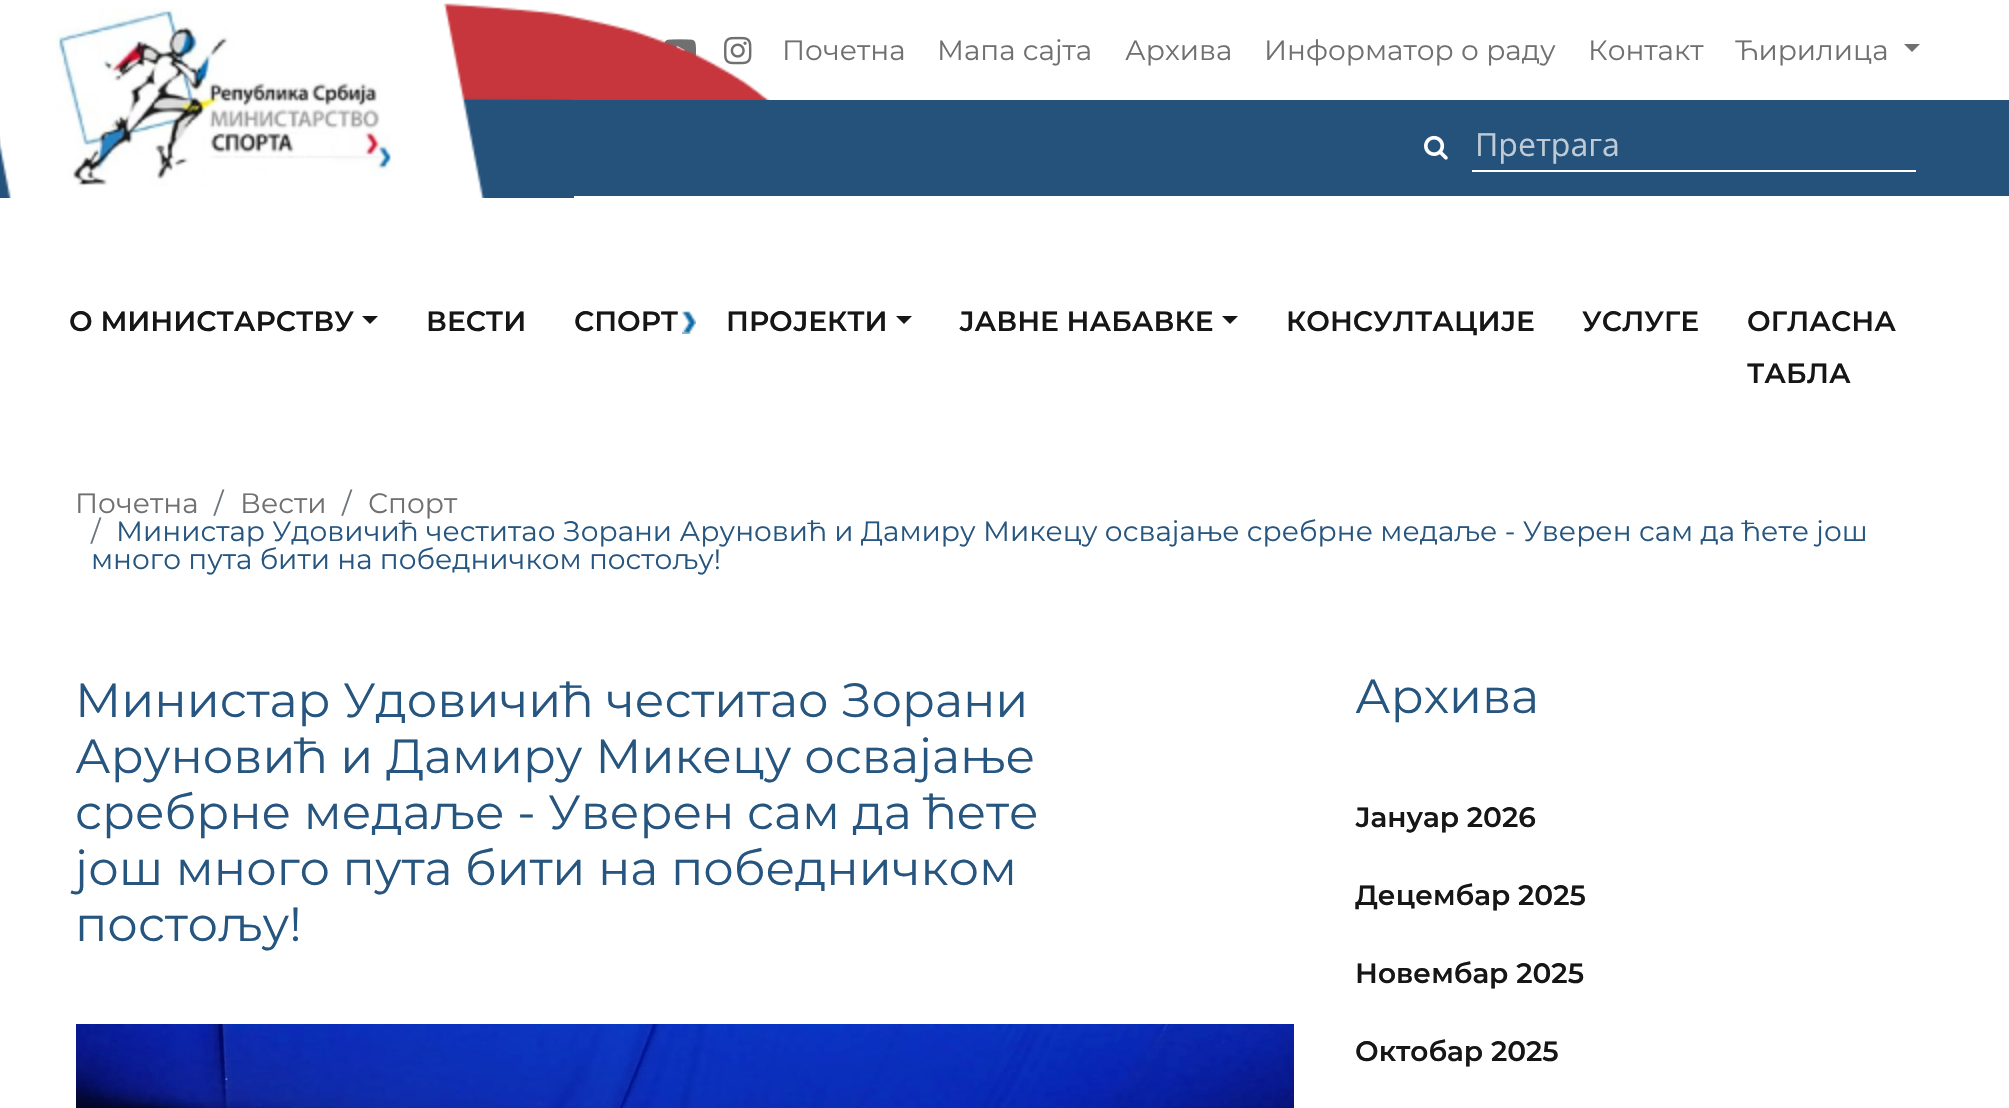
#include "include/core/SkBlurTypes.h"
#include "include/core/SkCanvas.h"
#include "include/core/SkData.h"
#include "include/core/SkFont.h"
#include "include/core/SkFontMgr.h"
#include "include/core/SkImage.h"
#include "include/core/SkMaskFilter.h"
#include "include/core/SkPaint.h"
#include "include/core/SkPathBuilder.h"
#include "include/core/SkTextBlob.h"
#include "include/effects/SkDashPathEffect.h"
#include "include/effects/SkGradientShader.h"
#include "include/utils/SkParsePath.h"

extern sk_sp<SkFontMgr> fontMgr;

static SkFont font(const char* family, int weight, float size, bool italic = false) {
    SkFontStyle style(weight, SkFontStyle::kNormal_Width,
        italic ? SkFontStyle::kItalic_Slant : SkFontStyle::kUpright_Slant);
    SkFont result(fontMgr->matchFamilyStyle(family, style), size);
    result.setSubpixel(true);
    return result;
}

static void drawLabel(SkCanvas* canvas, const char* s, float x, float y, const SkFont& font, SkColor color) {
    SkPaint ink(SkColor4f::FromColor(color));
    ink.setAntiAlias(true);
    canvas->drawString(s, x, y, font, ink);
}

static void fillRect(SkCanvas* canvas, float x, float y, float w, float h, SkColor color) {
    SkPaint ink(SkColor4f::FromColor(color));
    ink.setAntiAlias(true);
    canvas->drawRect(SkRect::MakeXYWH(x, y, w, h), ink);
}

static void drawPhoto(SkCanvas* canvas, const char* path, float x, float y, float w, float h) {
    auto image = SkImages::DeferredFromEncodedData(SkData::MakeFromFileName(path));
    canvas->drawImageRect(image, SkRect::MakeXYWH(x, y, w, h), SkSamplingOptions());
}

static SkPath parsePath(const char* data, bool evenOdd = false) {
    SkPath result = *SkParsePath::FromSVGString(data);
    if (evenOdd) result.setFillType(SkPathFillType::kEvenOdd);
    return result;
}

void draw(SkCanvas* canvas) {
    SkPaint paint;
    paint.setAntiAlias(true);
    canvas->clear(0xFFFFFFFF);
    drawPhoto(canvas, "assets/img3.png", 635, 34, 1, 1);
    drawPhoto(canvas, "assets/img4.png", 664, 39, 32, 18);
    drawPhoto(canvas, "assets/img5.png", 724, 36, 28, 29);
    drawPhoto(canvas, "assets/img2.png", 443, 3, 327, 97);
    drawPhoto(canvas, "assets/img6.png", 0, 97, 574, 101);
    fillRect(canvas, 247, 100, 1762, 96, 0xFF25527B);
    drawPhoto(canvas, "assets/img1.png", 0, 0, 485, 198);
    SkFont font1 = font("Montserrat", 400, 28);
    drawLabel(canvas, "Почетна", 782, 60, font1, 0xFF707070);
    drawLabel(canvas, "Мапа сајта", 937, 60, font1, 0xFF707070);
    drawLabel(canvas, "Архива", 1125, 60, font1, 0xFF707070);
    drawLabel(canvas, "Информатор о раду", 1264, 60, font1, 0xFF707070);
    drawLabel(canvas, "Контакт", 1588, 60, font1, 0xFF707070);
    drawLabel(canvas, "Ћирилица", 1735, 60, font1, 0xFF707070);
    paint.setColor(0xFF707070);
    canvas->drawPath(parsePath("M1904 44H1920L1912 52Z"), paint);
    drawPhoto(canvas, "assets/img7.png", 1424, 135, 24, 25);
    fillRect(canvas, 1472, 170, 444, 2, 0xFFFFFFFF);
    SkFont font2 = font("Open Sans", 400, 32);
    drawLabel(canvas, "Претрага", 1475, 156, font2, 0xFFBECBD7);
    SkFont font3 = font("Montserrat", 600, 28);
    drawLabel(canvas, "О МИНИСТАРСТВУ", 69, 331, font3, 0xFF161616);
    paint.setColor(0xFF161616);
    canvas->drawPath(parsePath("M362 316H378L370 324Z"), paint);
    drawLabel(canvas, "ВЕСТИ", 426, 331, font3, 0xFF161616);
    drawLabel(canvas, "СПОРТ", 574, 331, font3, 0xFF161616);
    drawPhoto(canvas, "assets/img8.png", 682, 311, 14, 23);
    drawLabel(canvas, "ПРОЈЕКТИ", 726, 331, font3, 0xFF161616);
    canvas->drawPath(parsePath("M896 316H912L904 324Z"), paint);
    drawLabel(canvas, "ЈАВНЕ НАБАВКЕ", 959, 331, font3, 0xFF161616);
    canvas->drawPath(parsePath("M1222 316H1238L1230 324Z"), paint);
    drawLabel(canvas, "КОНСУЛТАЦИЈЕ", 1286, 331, font3, 0xFF161616);
    drawLabel(canvas, "УСЛУГЕ", 1582, 331, font3, 0xFF161616);
    drawLabel(canvas, "ОГЛАСНА", 1747, 331, font3, 0xFF161616);
    drawLabel(canvas, "ТАБЛА", 1747, 383, font3, 0xFF161616);
    drawLabel(canvas, "Почетна", 75, 513, font1, 0xFF707070);
    drawLabel(canvas, "/", 214, 513, font1, 0xFF6C757D);
    drawLabel(canvas, "Вести", 240, 513, font1, 0xFF707070);
    drawLabel(canvas, "/", 342, 513, font1, 0xFF6C757D);
    drawLabel(canvas, "Спорт", 368, 513, font1, 0xFF707070);
    drawLabel(canvas, "/", 91, 541, font1, 0xFF6C757D);
    drawLabel(canvas, "Министар Удовичић честитао Зорани Аруновић и Дамиру Микецу освајање сребрне медаље - Уверен сам да ћете још", 116, 541, font1, 0xFF26557F);
    drawLabel(canvas, "много пута бити на победничком постољу!", 91, 569, font1, 0xFF26557F);
    SkFont font4 = font("Montserrat", 400, 48);
    drawLabel(canvas, "Министар Удовичић честитао Зорани", 75, 717, font4, 0xFF26557F);
    drawLabel(canvas, "Аруновић и Дамиру Микецу освајање", 75, 773, font4, 0xFF26557F);
    drawLabel(canvas, "сребрне медаље - Уверен сам да ћете", 75, 829, font4, 0xFF26557F);
    drawLabel(canvas, "још много пута бити на победничком", 75, 885, font4, 0xFF26557F);
    drawLabel(canvas, "постољу!", 75, 941, font4, 0xFF26557F);
    drawPhoto(canvas, "assets/img9.png", 76, 1024, 1218, 84);
    drawLabel(canvas, "Архива", 1355, 713, font4, 0xFF26557F);
    drawLabel(canvas, "Јануар 2026", 1355, 827, font3, 0xFF161616);
    drawLabel(canvas, "Децембар 2025", 1355, 905, font3, 0xFF161616);
    drawLabel(canvas, "Новембар 2025", 1355, 983, font3, 0xFF161616);
    drawLabel(canvas, "Октобар 2025", 1355, 1061, font3, 0xFF161616);
}
